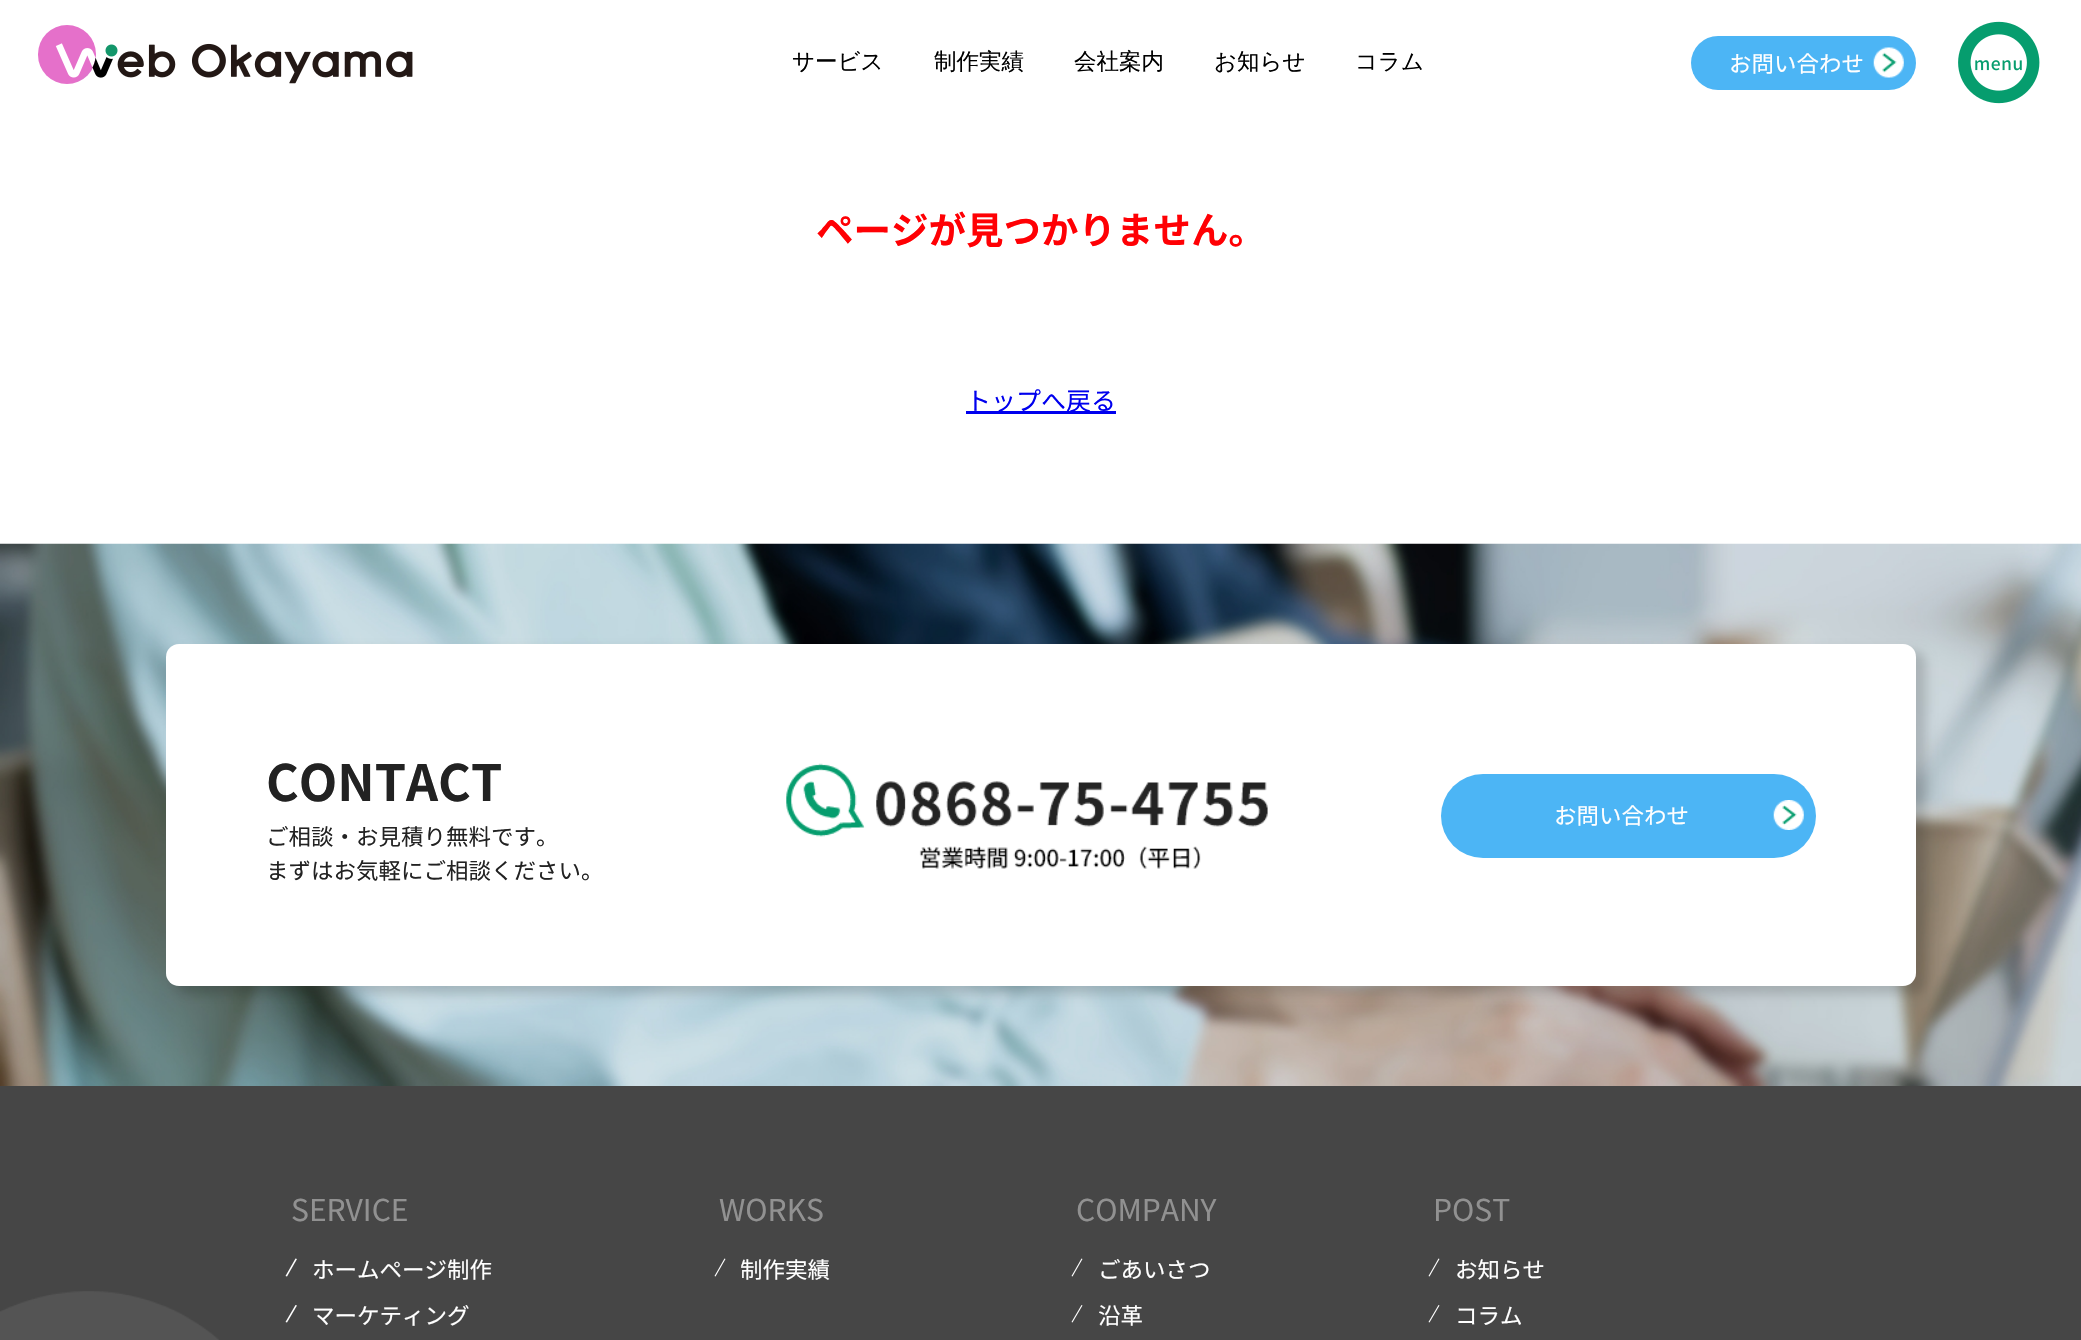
#include "include/core/SkBlurTypes.h"
#include "include/core/SkCanvas.h"
#include "include/core/SkData.h"
#include "include/core/SkFont.h"
#include "include/core/SkFontMgr.h"
#include "include/core/SkImage.h"
#include "include/core/SkMaskFilter.h"
#include "include/core/SkPaint.h"
#include "include/core/SkPathBuilder.h"
#include "include/core/SkTextBlob.h"
#include "include/effects/SkDashPathEffect.h"
#include "include/effects/SkGradientShader.h"
#include "include/utils/SkParsePath.h"

extern sk_sp<SkFontMgr> fontMgr;

static SkFont font(const char* family, int weight, float size, bool italic = false) {
    SkFontStyle style(weight, SkFontStyle::kNormal_Width,
        italic ? SkFontStyle::kItalic_Slant : SkFontStyle::kUpright_Slant);
    SkFont result(fontMgr->matchFamilyStyle(family, style), size);
    result.setSubpixel(true);
    return result;
}

static void drawLabel(SkCanvas* canvas, const char* s, float x, float y, const SkFont& font, SkColor color) {
    SkPaint ink(SkColor4f::FromColor(color));
    ink.setAntiAlias(true);
    canvas->drawString(s, x, y, font, ink);
}

static void fillRect(SkCanvas* canvas, float x, float y, float w, float h, SkColor color) {
    SkPaint ink(SkColor4f::FromColor(color));
    ink.setAntiAlias(true);
    canvas->drawRect(SkRect::MakeXYWH(x, y, w, h), ink);
}

static void fillRRect(SkCanvas* canvas, float x, float y, float w, float h, float radius, SkColor color) {
    SkPaint ink(SkColor4f::FromColor(color));
    ink.setAntiAlias(true);
    canvas->drawRoundRect(SkRect::MakeXYWH(x, y, w, h), radius, radius, ink);
}

static void drawPhoto(SkCanvas* canvas, const char* path, float x, float y, float w, float h) {
    auto image = SkImages::DeferredFromEncodedData(SkData::MakeFromFileName(path));
    canvas->drawImageRect(image, SkRect::MakeXYWH(x, y, w, h), SkSamplingOptions());
}

static SkPath parsePath(const char* data, bool evenOdd = false) {
    SkPath result = *SkParsePath::FromSVGString(data);
    if (evenOdd) result.setFillType(SkPathFillType::kEvenOdd);
    return result;
}

void draw(SkCanvas* canvas) {
    SkPaint paint;
    paint.setAntiAlias(true);
    canvas->clear(0xFFFFFFFF);
    {
        const SkColor colors[] = {0xFFE570CA, 0xFFE570CA, 0xFF6ABAE3, 0xFFD5D820, 0xFF09B17D, 0xFF09B17D};
        const float stops[] = {0, 0.2f, 0.4f, 0.6f, 0.8f, 1};
        const SkPoint ends[] = {{38, 25}, {273, 260}};
        paint.setShader(SkGradientShader::MakeLinear(ends, colors, stops, 6, SkTileMode::kClamp));
        paint.setAlpha(255);
    }
    canvas->drawRoundRect(SkRect::MakeXYWH(38, 25, 58, 59), 29, 29, paint);
    drawPhoto(canvas, "assets/img1.png", 55, 43, 358, 41);
    SkFont font1 = font("WenQuanYi Zen Hei", 500, 22.5f);
    drawLabel(canvas, "サービス", 792, 69, font1, 0xFF000000);
    drawLabel(canvas, "制作実績", 934, 69, font1, 0xFF000000);
    drawLabel(canvas, "会社案内", 1074, 69, font1, 0xFF000000);
    drawLabel(canvas, "お知らせ", 1214, 69, font1, 0xFF000000);
    drawLabel(canvas, "コラム", 1355, 69, font1, 0xFF000000);
    fillRRect(canvas, 1691, 36, 225, 54, 27, 0xFF4CB5F5);
    SkFont font2 = font("Noto Sans JP", 400, 22.5f);
    drawLabel(canvas, "お問い合わせ", 1729, 72, font2, 0xFFFFFFFF);
    drawPhoto(canvas, "assets/img2.png", 1873, 47, 31, 31);
    drawPhoto(canvas, "assets/img3.png", 1958, 21, 82, 83);
    SkFont font3 = font("Noto Sans JP", 700, 37.5f);
    drawLabel(canvas, "ページが見つかりません。", 816, 244, font3, 0xFFFF0004);
    fillRect(canvas, 966, 411, 150, 3, 0xFF0000EE);
    SkFont font4 = font("Noto Sans JP", 400, 25);
    drawLabel(canvas, "トップへ戻る", 966, 410, font4, 0xFF0000EE);
    drawPhoto(canvas, "assets/img4.png", 0, 543, 2081, 543);
    paint.setShader(nullptr);
    paint.setColor(0x29000000);
    paint.setMaskFilter(SkMaskFilter::MakeBlur(kNormal_SkBlurStyle, 5.5f));
    canvas->drawRoundRect(SkRect::MakeXYWH(176, 651, 1750, 343), 13, 13, paint);
    paint.setMaskFilter(nullptr);
    fillRRect(canvas, 166, 644, 1750, 342, 13, 0xFFFFFFFF);
    SkFont font5 = font("Noto Sans JP", 700, 50);
    drawLabel(canvas, "CONTACT", 266, 801, font5, 0xFF222222);
    drawLabel(canvas, "ご相談・お見積り無料です。", 266, 845, font2, 0xFF222222);
    drawLabel(canvas, "まずはお気軽にご相談ください。", 266, 879, font2, 0xFF222222);
    drawPhoto(canvas, "assets/img5.png", 786, 763, 482, 106);
    fillRRect(canvas, 1441, 774, 375, 84, 42, 0xFF4CB5F5);
    drawLabel(canvas, "お問い合わせ", 1554, 824, font2, 0xFFFFFFFF);
    drawPhoto(canvas, "assets/img6.png", 1773, 800, 31, 30);
    fillRect(canvas, 0, 1086, 2081, 254, 0xFF464646);
    drawPhoto(canvas, "assets/img7.png", 0, 1291, 219, 49);
    SkFont font6 = font("Noto Sans JP", 400, 30);
    drawLabel(canvas, "SERVICE", 291, 1221, font6, 0xFF919191);
    paint.setColor(0xFFFFFFFF);
    canvas->drawPath(parsePath("M295.5 1258.5L297 1259L287 1276.5L285.5 1276Z"), paint);
    drawLabel(canvas, "ホームページ制作", 312, 1278, font2, 0xFFFFFFFF);
    canvas->drawPath(parsePath("M295.5 1305L297 1305.5L287 1322.5L285.5 1322Z"), paint);
    drawLabel(canvas, "マーケティング", 312, 1324, font2, 0xFFFFFFFF);
    drawLabel(canvas, "WORKS", 719, 1221, font6, 0xFF919191);
    canvas->drawPath(parsePath("M724.5 1258.5L725.5 1259L715.5 1276.5L714.5 1276Z"), paint);
    drawLabel(canvas, "制作実績", 740, 1278, font2, 0xFFFFFFFF);
    drawLabel(canvas, "COMPANY", 1076, 1221, font6, 0xFF919191);
    canvas->drawPath(parsePath("M1081.5 1258.5L1082.5 1259L1072.5 1276.5L1071.5 1276Z"), paint);
    drawLabel(canvas, "ごあいさつ", 1098, 1278, font2, 0xFFFFFFFF);
    canvas->drawPath(parsePath("M1081.5 1305L1082.5 1305.5L1072.5 1322.5L1071.5 1322Z"), paint);
    drawLabel(canvas, "沿革", 1098, 1324, font2, 0xFFFFFFFF);
    drawLabel(canvas, "POST", 1433, 1221, font6, 0xFF919191);
    canvas->drawPath(parsePath("M1438.5 1258.5L1439.5 1259L1429.5 1276.5L1428.5 1276Z"), paint);
    drawLabel(canvas, "お知らせ", 1455, 1278, font2, 0xFFFFFFFF);
    canvas->drawPath(parsePath("M1438.5 1305L1439.5 1305.5L1429.5 1322.5L1428.5 1322Z"), paint);
    drawLabel(canvas, "コラム", 1455, 1324, font2, 0xFFFFFFFF);
}
